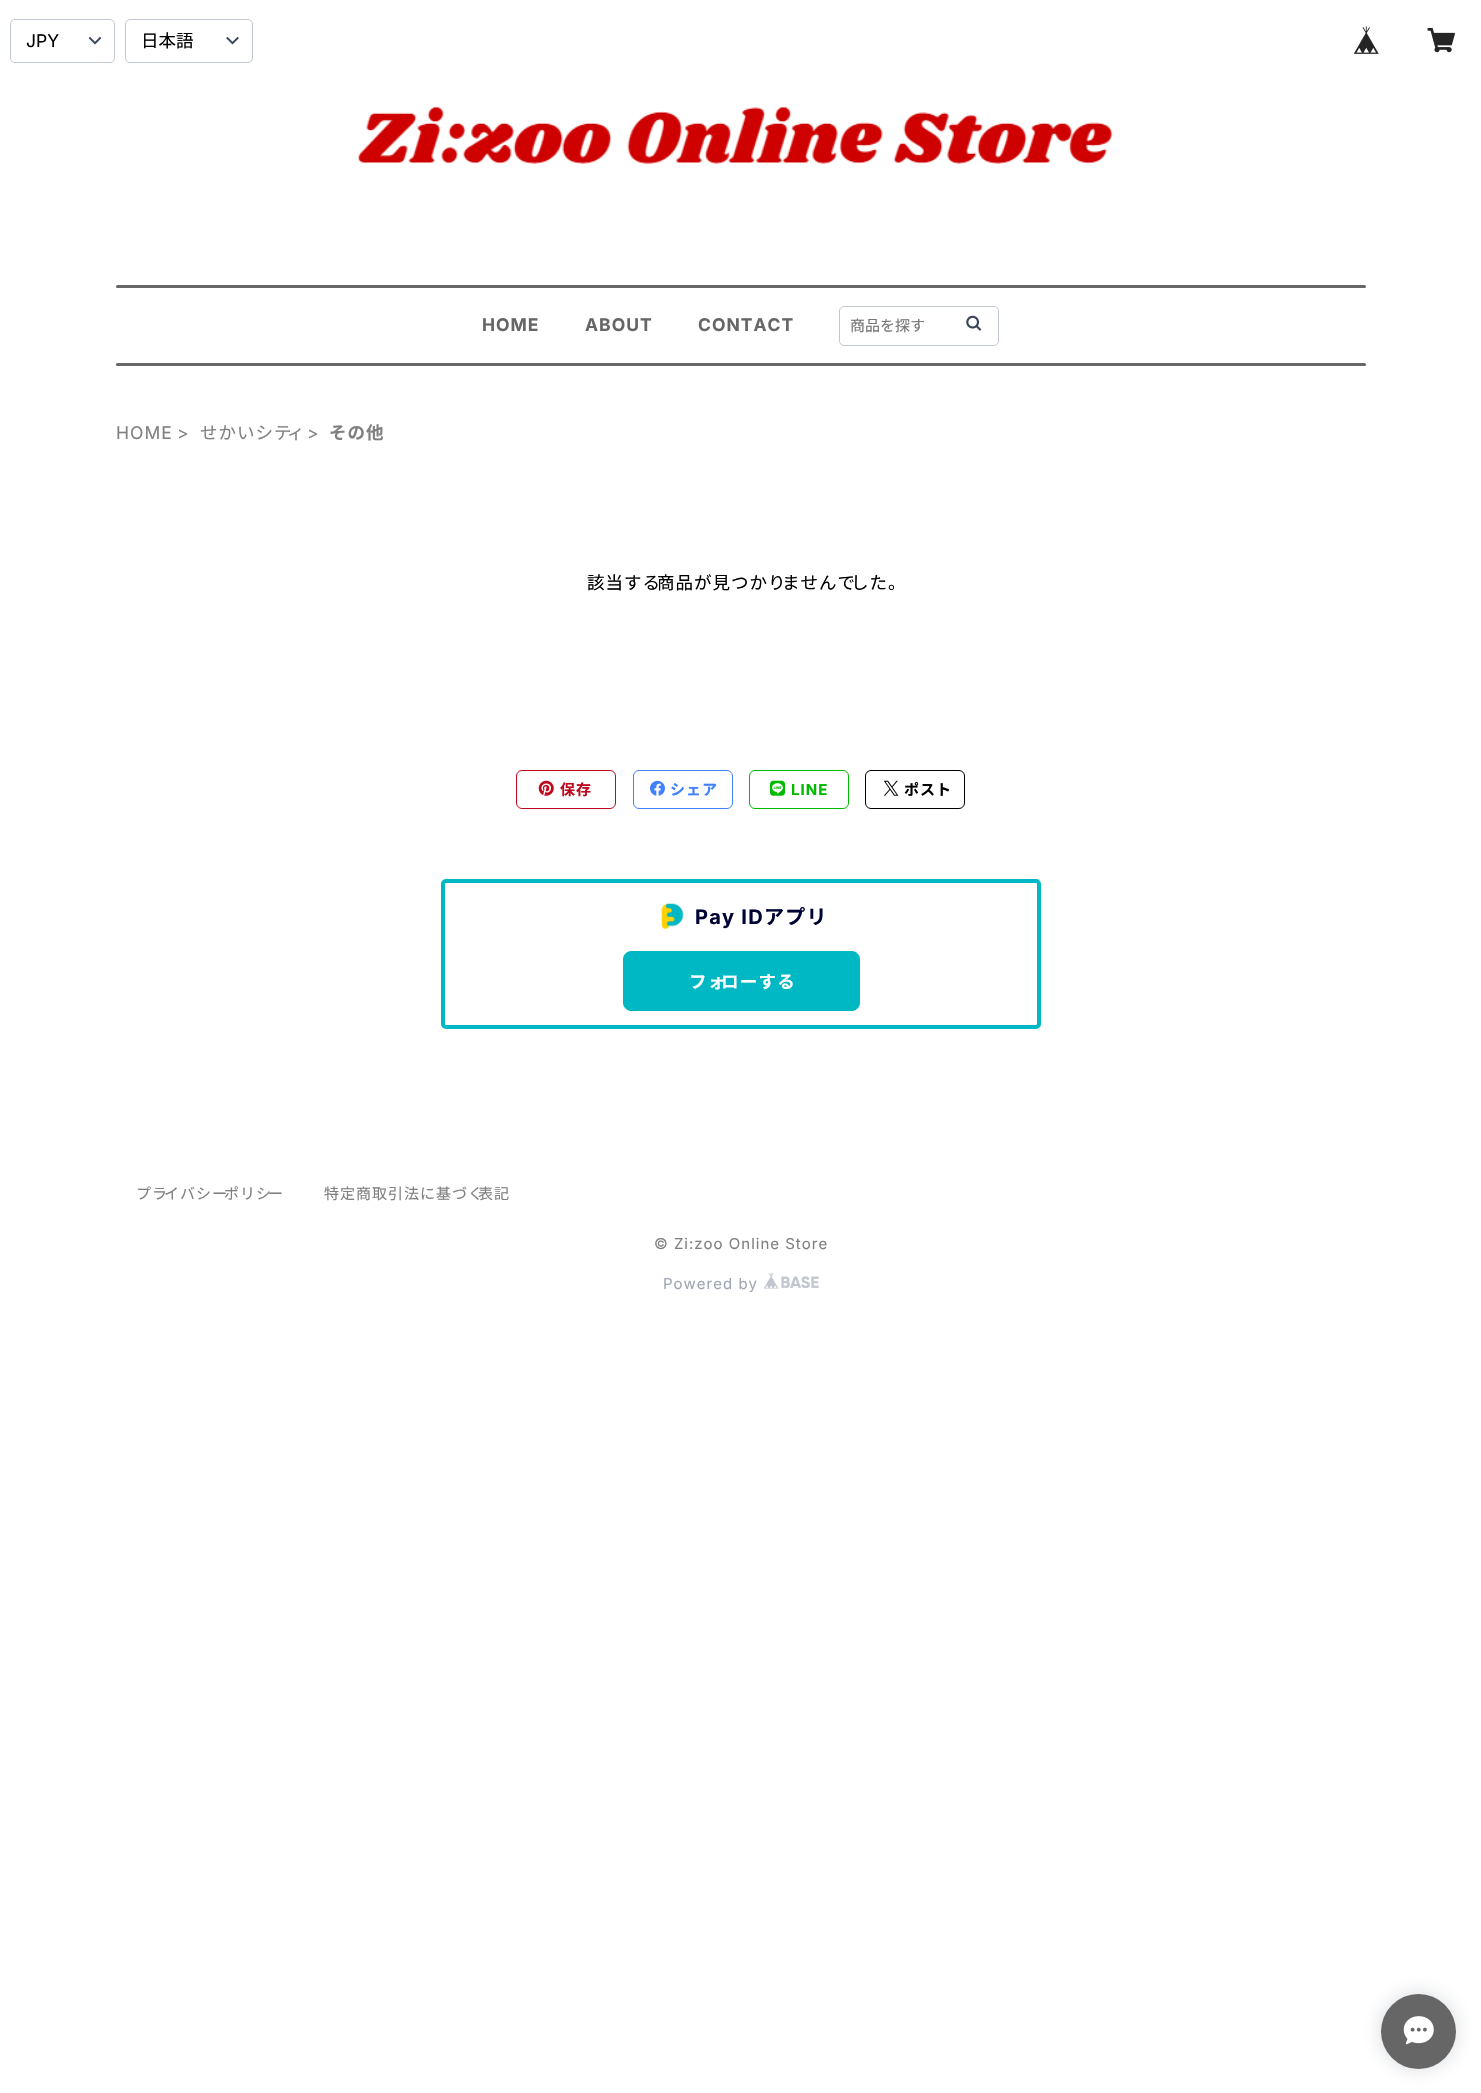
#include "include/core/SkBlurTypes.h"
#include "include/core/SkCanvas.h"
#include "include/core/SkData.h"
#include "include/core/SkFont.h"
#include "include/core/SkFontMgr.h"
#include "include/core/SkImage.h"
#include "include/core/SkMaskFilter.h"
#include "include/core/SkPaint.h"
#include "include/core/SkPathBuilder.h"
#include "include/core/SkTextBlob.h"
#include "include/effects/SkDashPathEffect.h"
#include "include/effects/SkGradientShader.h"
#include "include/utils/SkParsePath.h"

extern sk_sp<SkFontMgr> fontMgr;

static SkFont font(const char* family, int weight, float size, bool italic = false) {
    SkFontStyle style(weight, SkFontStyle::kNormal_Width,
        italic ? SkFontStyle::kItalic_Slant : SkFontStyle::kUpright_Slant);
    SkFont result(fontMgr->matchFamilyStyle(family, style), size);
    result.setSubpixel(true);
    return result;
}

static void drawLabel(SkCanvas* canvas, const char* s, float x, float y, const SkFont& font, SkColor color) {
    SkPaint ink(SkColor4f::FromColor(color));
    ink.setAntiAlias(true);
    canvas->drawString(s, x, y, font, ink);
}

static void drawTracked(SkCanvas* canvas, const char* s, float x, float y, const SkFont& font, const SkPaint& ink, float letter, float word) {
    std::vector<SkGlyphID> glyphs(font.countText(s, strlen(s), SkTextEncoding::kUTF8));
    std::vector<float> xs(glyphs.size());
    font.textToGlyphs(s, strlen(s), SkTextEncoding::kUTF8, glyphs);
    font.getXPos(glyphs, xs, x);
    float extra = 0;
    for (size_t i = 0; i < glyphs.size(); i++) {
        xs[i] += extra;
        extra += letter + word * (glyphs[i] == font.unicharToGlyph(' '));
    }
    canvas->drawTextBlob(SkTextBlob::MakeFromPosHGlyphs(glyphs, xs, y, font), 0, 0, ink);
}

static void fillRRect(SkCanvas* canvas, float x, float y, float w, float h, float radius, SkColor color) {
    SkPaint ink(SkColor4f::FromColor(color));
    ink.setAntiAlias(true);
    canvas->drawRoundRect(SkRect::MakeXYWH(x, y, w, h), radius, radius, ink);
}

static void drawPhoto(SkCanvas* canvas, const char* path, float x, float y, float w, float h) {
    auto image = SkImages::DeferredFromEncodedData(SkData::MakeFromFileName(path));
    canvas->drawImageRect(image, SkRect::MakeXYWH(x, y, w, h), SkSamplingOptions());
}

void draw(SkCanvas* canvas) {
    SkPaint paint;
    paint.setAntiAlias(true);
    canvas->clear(0xFFFFFFFF);
    paint.setStroke(true);
    paint.setStrokeWidth(1);
    paint.setColor(0xFFC2C8D2);
    canvas->drawRoundRect(SkRect::MakeXYWH(10.5f, 19.5f, 104, 43), 4.5f, 4.5f, paint);
    SkFont font1 = font("Inter", 400, 17.5f);
    drawLabel(canvas, "JPY", 26, 47, font1, 0xFF000000);
    drawPhoto(canvas, "assets/img1.png", 88, 37, 14, 8);
    canvas->drawRoundRect(SkRect::MakeXYWH(125.5f, 19.5f, 127, 43), 4.5f, 4.5f, paint);
    SkFont font2 = font("Noto Sans JP", 400, 17.5f);
    drawLabel(canvas, "日本語", 141, 47, font2, 0xFF000000);
    drawPhoto(canvas, "assets/img2.png", 226, 36, 13, 9);
    drawPhoto(canvas, "assets/img3.png", 1353, 26, 26, 28);
    drawPhoto(canvas, "assets/img4.png", 1427, 28, 28, 25);
    drawPhoto(canvas, "assets/img5.png", 358, 106, 755, 58);
    fillRRect(canvas, 116, 285, 1250, 3, 1.5f, 0xFF666666);
    SkFont font3 = font("Inter", 700, 17.5f);
    paint.setStroke(false);
    paint.setColor(0xFF666666);
    drawTracked(canvas, "HOME", 482, 331, font3, paint, 1, 0);
    drawTracked(canvas, "ABOUT", 585, 331, font3, paint, 1, 0);
    drawTracked(canvas, "CONTACT", 698, 331, font3, paint, 1, 0);
    paint.setStroke(true);
    paint.setColor(0xFFC2C8D2);
    canvas->drawRoundRect(SkRect::MakeXYWH(839.5f, 306.5f, 159, 39), 4.5f, 4.5f, paint);
    SkFont font4 = font("Noto Sans JP", 400, 15);
    drawLabel(canvas, "商品を探す", 850, 331, font4, 0xFF757575);
    drawPhoto(canvas, "assets/img6.png", 966, 315, 16, 16);
    fillRRect(canvas, 116, 363, 1250, 3, 1.5f, 0xFF666666);
    paint.setStroke(false);
    paint.setColor(0xFF808080);
    drawTracked(canvas, "HOME", 116, 439, font1, paint, 1, 0);
    drawTracked(canvas, ">", 177, 439, font1, paint, 1, 0);
    drawTracked(canvas, "せかいシテ", 200, 439, font2, paint, 1, 0);
    drawTracked(canvas, "ィ", 287, 439, font2, paint, 1, 0);
    drawTracked(canvas, ">", 307, 439, font1, paint, 1, 0);
    SkFont font5 = font("Noto Sans JP", 700, 17.5f);
    drawTracked(canvas, "その他", 329, 439, font5, paint, 1, 0);
    paint.setColor(0xFF000000);
    drawTracked(canvas, "該当する", 587, 589, font2, paint, 1, 0);
    drawTracked(canvas, "商品が見つかり", 657, 589, font2, paint, 1, 0);
    drawTracked(canvas, "ませんで", 782, 589, font2, paint, 1, 0);
    drawTracked(canvas, "した。", 851, 589, font2, paint, 1, 0);
    paint.setStroke(true);
    paint.setColor(0xFFBD091C);
    canvas->drawRoundRect(SkRect::MakeXYWH(516.5f, 770.5f, 99, 38), 5.5f, 5.5f, paint);
    drawPhoto(canvas, "assets/img7.png", 538, 780, 16, 16);
    SkFont font6 = font("Noto Sans JP", 700, 15);
    paint.setStroke(false);
    drawTracked(canvas, "保存", 560, 795, font6, paint, 1, 0);
    paint.setStroke(true);
    paint.setColor(0xFF4081FF);
    canvas->drawRoundRect(SkRect::MakeXYWH(633.5f, 770.5f, 99, 38), 5.5f, 5.5f, paint);
    drawPhoto(canvas, "assets/img8.png", 650, 780, 15, 16);
    paint.setStroke(false);
    drawTracked(canvas, "シェア", 670, 795, font6, paint, 1, 0);
    paint.setStroke(true);
    paint.setColor(0xFF00B901);
    canvas->drawRoundRect(SkRect::MakeXYWH(749.5f, 770.5f, 99, 38), 5.5f, 5.5f, paint);
    drawPhoto(canvas, "assets/img9.png", 770, 780, 15, 16);
    SkFont font7 = font("Inter", 700, 15);
    paint.setStroke(false);
    drawTracked(canvas, "LINE", 791, 795, font7, paint, 1, 0);
    paint.setStroke(true);
    paint.setColor(0xFF000000);
    canvas->drawRoundRect(SkRect::MakeXYWH(865.5f, 770.5f, 99, 38), 5.5f, 5.5f, paint);
    drawPhoto(canvas, "assets/img10.png", 883, 780, 16, 16);
    paint.setStroke(false);
    drawTracked(canvas, "ポスト", 904, 795, font6, paint, 1, 0);
    paint.setStroke(true);
    paint.setStrokeWidth(4);
    paint.setColor(0xFF00B8C3);
    canvas->drawRoundRect(SkRect::MakeXYWH(443, 881, 596, 146), 3, 3, paint);
    drawPhoto(canvas, "assets/img11.png", 661, 903, 23, 26);
    SkFont font8 = font("Inter", 700, 20);
    paint.setStroke(false);
    paint.setColor(0xFF000435);
    drawTracked(canvas, "Pay ID", 695, 924, font8, paint, 1.25f, 0);
    SkFont font9 = font("Noto Sans JP", 700, 20);
    drawTracked(canvas, "アプリ", 764, 924, font9, paint, 1.25f, 0);
    paint.setColor(0xFF00B8C3);
    canvas->drawRoundRect(SkRect::MakeXYWH(623.5f, 951.5f, 236, 59), 7.5f, 7.5f, paint);
    paint.setStroke(true);
    paint.setStrokeWidth(1);
    canvas->drawRoundRect(SkRect::MakeXYWH(623.5f, 951.5f, 236, 59), 7.5f, 7.5f, paint);
    paint.setStroke(false);
    paint.setColor(0xFFFFFFFF);
    drawTracked(canvas, "フォ", 689, 988, font5, paint, 1.25f, 0);
    drawTracked(canvas, "ローする", 721, 988, font5, paint, 1.25f, 0);
    paint.setColor(0xFF808080);
    drawTracked(canvas, "プラ", 136, 1199, font4, paint, 1, 0);
    drawTracked(canvas, "イバシー", 164, 1199, font4, paint, 1, 0);
    drawTracked(canvas, "ポリシ", 224, 1199, font4, paint, 1, 0);
    drawTracked(canvas, "ー", 268, 1199, font4, paint, 1, 0);
    drawTracked(canvas, "特定商取引法に基づく", 324, 1199, font4, paint, 1, 0);
    drawTracked(canvas, "表記", 478, 1199, font4, paint, 1, 0);
    SkFont font10 = font("Inter", 400, 15);
    drawTracked(canvas, "© Zi:zoo Online Store", 654, 1249, font10, paint, 1, 0);
    paint.setColor(0xFFA0A7B4);
    drawTracked(canvas, "Powered by", 663, 1289, font10, paint, 1, 0);
    drawPhoto(canvas, "assets/img12.png", 763, 1272, 56, 17);
    paint.setColor(0x33334258);
    paint.setMaskFilter(SkMaskFilter::MakeBlur(kNormal_SkBlurStyle, 9.5f));
    canvas->drawRoundRect(SkRect::MakeXYWH(1381, 1994, 75, 75), 37.5f, 37.5f, paint);
    paint.setMaskFilter(nullptr);
    paint.setColor(0xFF666666);
    canvas->drawCircle(1418.5f, 2031.5f, 37.5f, paint);
    drawPhoto(canvas, "assets/img13.png", 1403, 2016, 31, 29);
}
